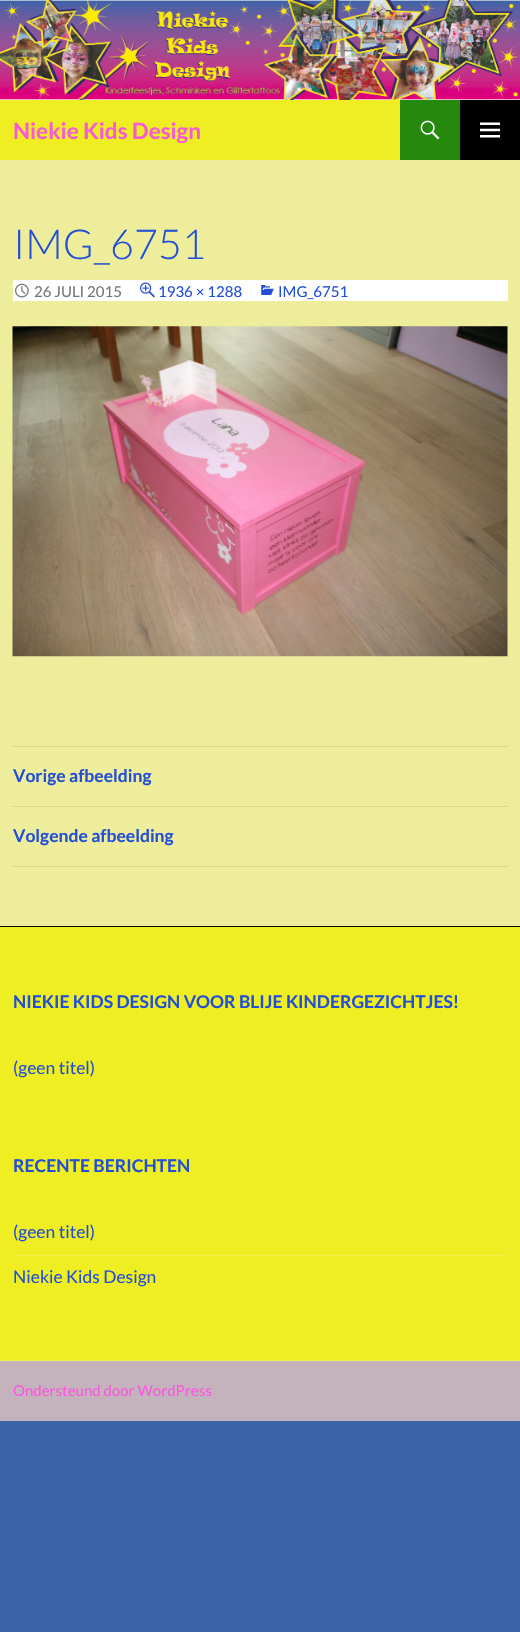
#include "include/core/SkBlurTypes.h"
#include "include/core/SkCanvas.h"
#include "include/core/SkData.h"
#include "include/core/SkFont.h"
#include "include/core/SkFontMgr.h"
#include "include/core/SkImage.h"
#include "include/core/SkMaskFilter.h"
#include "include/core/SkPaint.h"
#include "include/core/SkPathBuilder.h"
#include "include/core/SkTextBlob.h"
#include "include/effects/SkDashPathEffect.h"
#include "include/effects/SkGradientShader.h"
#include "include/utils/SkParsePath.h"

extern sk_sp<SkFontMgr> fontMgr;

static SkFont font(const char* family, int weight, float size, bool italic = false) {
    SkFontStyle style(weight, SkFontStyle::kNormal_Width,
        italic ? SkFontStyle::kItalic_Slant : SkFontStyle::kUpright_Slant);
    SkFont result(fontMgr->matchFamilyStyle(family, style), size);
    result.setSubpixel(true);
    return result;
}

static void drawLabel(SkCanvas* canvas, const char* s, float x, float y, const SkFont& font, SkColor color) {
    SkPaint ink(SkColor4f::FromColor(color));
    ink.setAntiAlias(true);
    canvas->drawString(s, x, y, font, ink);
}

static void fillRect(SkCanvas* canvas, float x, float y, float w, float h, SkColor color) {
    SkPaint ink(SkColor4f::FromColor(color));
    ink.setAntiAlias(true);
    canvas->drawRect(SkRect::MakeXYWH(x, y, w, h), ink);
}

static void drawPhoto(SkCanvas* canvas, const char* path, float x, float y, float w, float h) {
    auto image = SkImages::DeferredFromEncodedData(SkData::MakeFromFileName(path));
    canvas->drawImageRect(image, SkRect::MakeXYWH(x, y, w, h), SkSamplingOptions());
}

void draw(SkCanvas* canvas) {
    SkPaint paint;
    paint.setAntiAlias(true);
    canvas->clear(0xFFFFFFFF);
    drawPhoto(canvas, "assets/img1.png", 0, 1421, 520, 211);
    drawPhoto(canvas, "assets/img2.png", 0, 0, 520, 100);
    fillRect(canvas, 0, 100, 400, 60, 0xFFEEEE22);
    SkFont font1 = font("Lato", 700, 22.5f);
    drawLabel(canvas, "Niekie Kids Design", 13, 139, font1, 0xFFF957DC);
    fillRect(canvas, 400, 100, 60, 60, 0xFF24890D);
    drawPhoto(canvas, "assets/img3.png", 420, 120, 20, 20);
    fillRect(canvas, 460, 100, 60, 60, 0xFF000000);
    drawPhoto(canvas, "assets/img4.png", 480, 122, 20, 16);
    fillRect(canvas, 0, 160, 520, 766, 0xFFEDED9C);
    SkFont font2 = font("Lato", 300, 41.25f);
    drawLabel(canvas, "IMG_6751", 13, 259, font2, 0xFF224FD6);
    fillRect(canvas, 13, 280, 495, 21, 0xFFFFFFFF);
    drawPhoto(canvas, "assets/img5.png", 15, 283, 14, 15);
    SkFont font3 = font("Lato", 400, 15);
    drawLabel(canvas, "26 JULI 2015", 34, 297, font3, 0xFF767676);
    drawPhoto(canvas, "assets/img6.png", 140, 282, 15, 16);
    drawLabel(canvas, "1936 × 1288", 158, 297, font3, 0xFF224FD6);
    drawPhoto(canvas, "assets/img7.png", 261, 285, 13, 10);
    drawLabel(canvas, "IMG_6751", 278, 297, font3, 0xFF224FD6);
    drawPhoto(canvas, "assets/img8.png", 12, 326, 496, 331);
    fillRect(canvas, 13, 746, 495, 1, 0xFFD5D58C);
    fillRect(canvas, 13, 806, 495, 1, 0xFFD5D58C);
    SkFont font4 = font("Lato", 700, 17.5f);
    drawLabel(canvas, "Vorige afbeelding", 13, 782, font4, 0xFF224FD6);
    fillRect(canvas, 13, 866, 495, 1, 0xFFD5D58C);
    drawLabel(canvas, "Volgende afbeelding", 13, 842, font4, 0xFF224FD6);
    fillRect(canvas, 0, 927, 520, 433, 0xFFEEEE22);
    fillRect(canvas, 0, 926, 520, 1, 0xFF000000);
    fillRect(canvas, 0, 1360, 520, 1, 0xFFF1F14E);
    drawLabel(canvas, "NIEKIE KIDS DESIGN VOOR BLIJE KINDERGEZICHTJES!", 13, 1008, font4, 0xFF224FD6);
    SkFont font5 = font("Lato", 400, 17.5f);
    drawLabel(canvas, "(geen titel)", 13, 1074, font5, 0xFF224FD6);
    drawLabel(canvas, "RECENTE BERICHTEN", 13, 1172, font4, 0xFF224FD6);
    drawLabel(canvas, "(geen titel)", 13, 1238, font5, 0xFF224FD6);
    fillRect(canvas, 13, 1255, 495, 1, 0xFFF1F14E);
    drawLabel(canvas, "Niekie Kids Design", 13, 1283, font5, 0xFF224FD6);
    fillRect(canvas, 0, 1361, 520, 60, 0xFFC4B3BD);
    drawLabel(canvas, "Ondersteund door WordPress", 13, 1396, font3, 0xFFF957DC);
}
